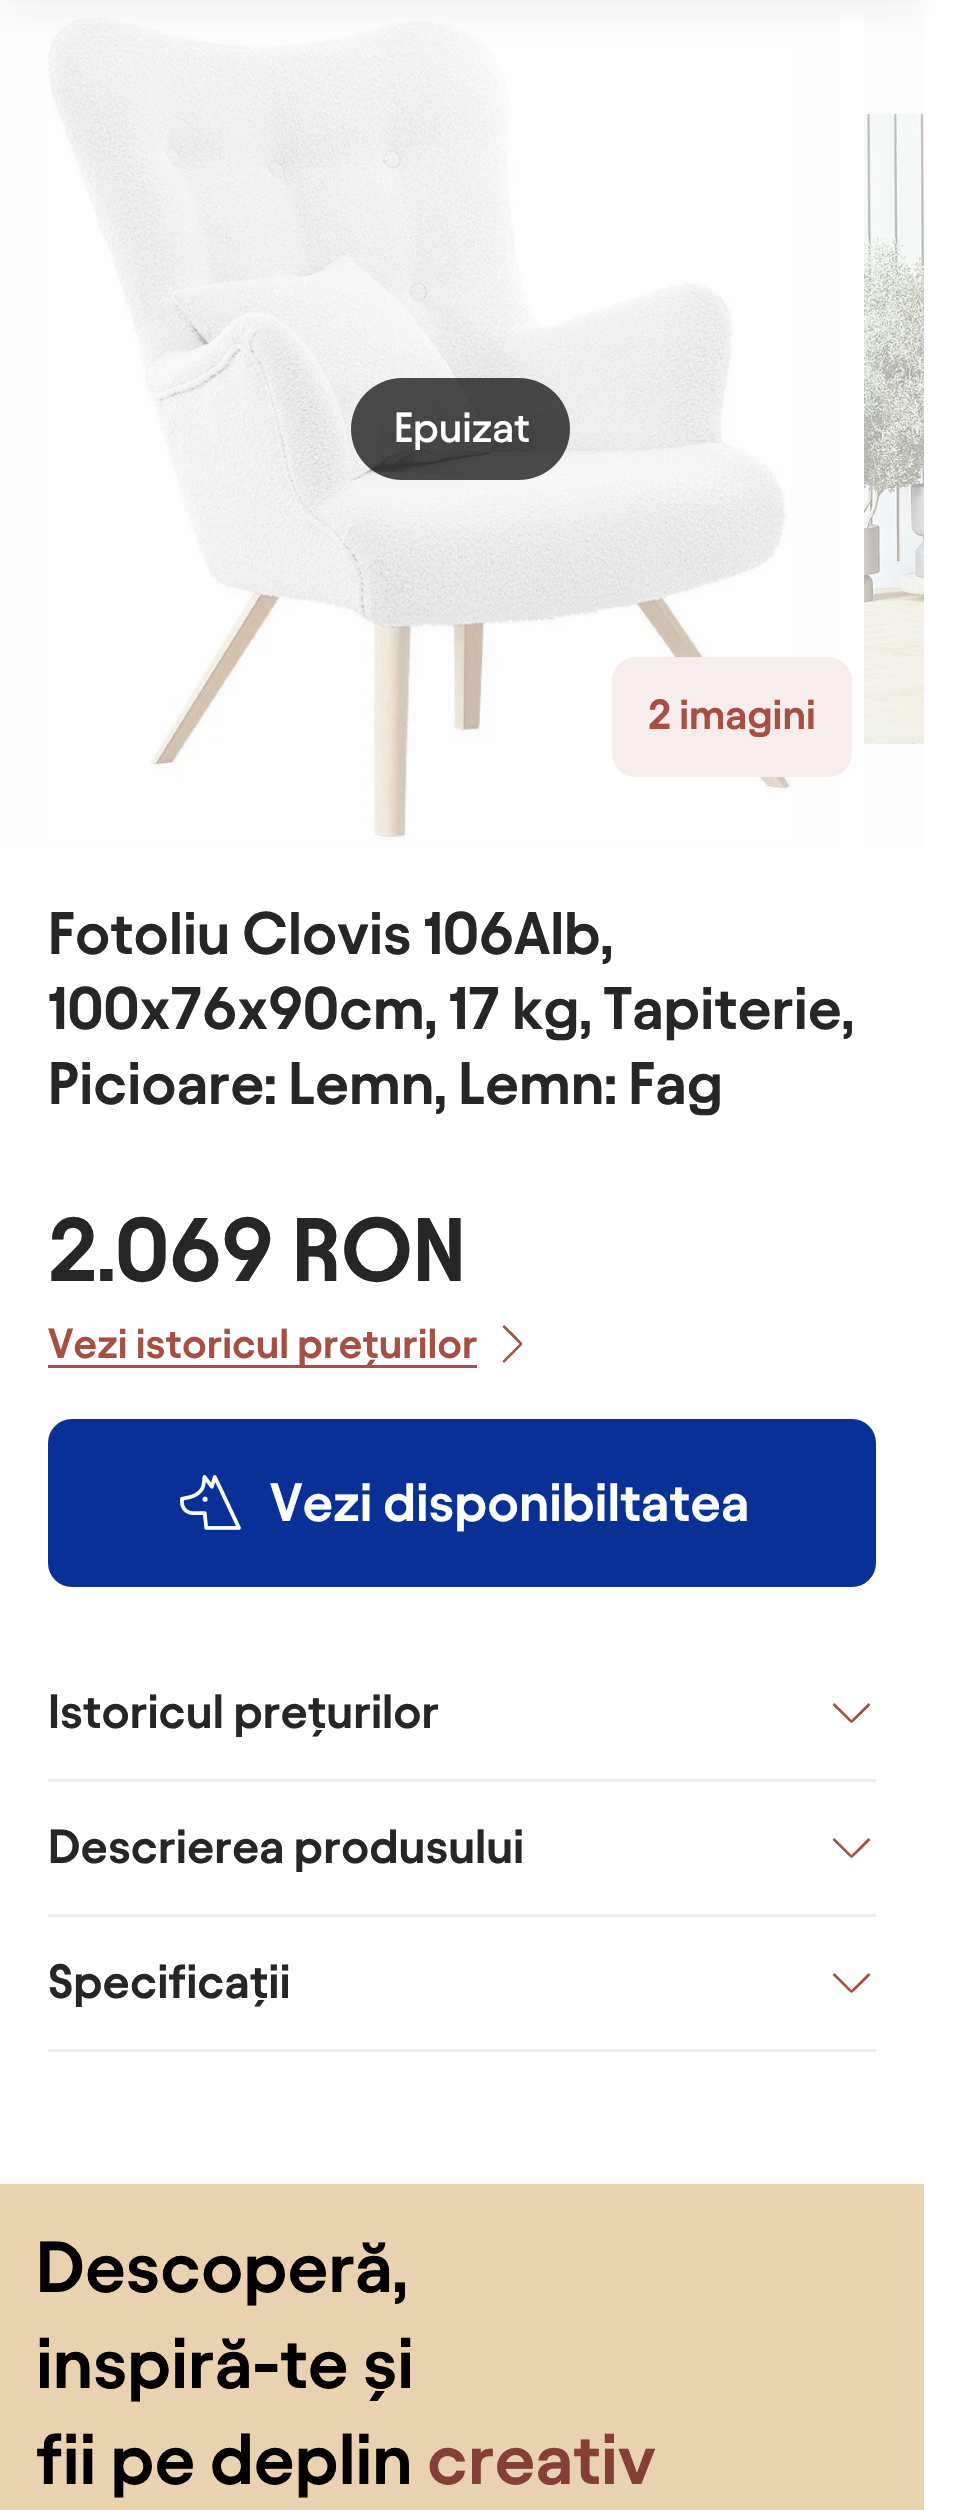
#include "include/core/SkBlurTypes.h"
#include "include/core/SkCanvas.h"
#include "include/core/SkData.h"
#include "include/core/SkFont.h"
#include "include/core/SkFontMgr.h"
#include "include/core/SkImage.h"
#include "include/core/SkMaskFilter.h"
#include "include/core/SkPaint.h"
#include "include/core/SkPathBuilder.h"
#include "include/core/SkTextBlob.h"
#include "include/effects/SkDashPathEffect.h"
#include "include/effects/SkGradientShader.h"
#include "include/utils/SkParsePath.h"

extern sk_sp<SkFontMgr> fontMgr;

static SkFont font(const char* family, int weight, float size, bool italic = false) {
    SkFontStyle style(weight, SkFontStyle::kNormal_Width,
        italic ? SkFontStyle::kItalic_Slant : SkFontStyle::kUpright_Slant);
    SkFont result(fontMgr->matchFamilyStyle(family, style), size);
    result.setSubpixel(true);
    return result;
}

static void drawLabel(SkCanvas* canvas, const char* s, float x, float y, const SkFont& font, SkColor color) {
    SkPaint ink(SkColor4f::FromColor(color));
    ink.setAntiAlias(true);
    canvas->drawString(s, x, y, font, ink);
}

static void fillRect(SkCanvas* canvas, float x, float y, float w, float h, SkColor color) {
    SkPaint ink(SkColor4f::FromColor(color));
    ink.setAntiAlias(true);
    canvas->drawRect(SkRect::MakeXYWH(x, y, w, h), ink);
}

static void fillRRect(SkCanvas* canvas, float x, float y, float w, float h, float radius, SkColor color) {
    SkPaint ink(SkColor4f::FromColor(color));
    ink.setAntiAlias(true);
    canvas->drawRoundRect(SkRect::MakeXYWH(x, y, w, h), radius, radius, ink);
}

static void drawPhoto(SkCanvas* canvas, const char* path, float x, float y, float w, float h) {
    auto image = SkImages::DeferredFromEncodedData(SkData::MakeFromFileName(path));
    canvas->drawImageRect(image, SkRect::MakeXYWH(x, y, w, h), SkSamplingOptions());
}

static SkPath parsePath(const char* data, bool evenOdd = false) {
    SkPath result = *SkParsePath::FromSVGString(data);
    if (evenOdd) result.setFillType(SkPathFillType::kEvenOdd);
    return result;
}

void draw(SkCanvas* canvas) {
    SkPaint paint;
    paint.setAntiAlias(true);
    canvas->clear(0xFFFFFFFF);
    fillRect(canvas, 0, 9, 840, 840, 0xFFFCFCFC);
    drawPhoto(canvas, "assets/img1.png", 48, 18, 743, 821);
    fillRect(canvas, 864, 9, 60, 840, 0xFFFCFCFC);
    paint.setColor(0x14000000);
    paint.setMaskFilter(SkMaskFilter::MakeBlur(kNormal_SkBlurStyle, 18));
    canvas->drawRect(SkRect::MakeXYWH(0, -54, 924, 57), paint);
    paint.setMaskFilter(nullptr);
    drawPhoto(canvas, "assets/img2.png", 864, 114, 60, 630);
    fillRRect(canvas, 351, 378, 219, 102, 51, 0xB3000000);
    SkFont font1 = font("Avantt", 500, 42);
    drawLabel(canvas, "Epuizat", 394, 442, font1, 0xFFFFFFFF);
    fillRRect(canvas, 612, 657, 240, 120, 24, 0xFFF6EDEC);
    SkFont font2 = font("Avantt", 600, 42);
    drawLabel(canvas, "2 imagini", 648, 729, font2, 0xFFA64F42);
    SkFont font3 = font("Avantt", 600, 60);
    drawLabel(canvas, "Fotoliu Clovis 106Alb,", 48, 954, font3, 0xFF262626);
    drawLabel(canvas, "100x76x90cm, 17 kg, Tapiterie,", 48, 1029, font3, 0xFF262626);
    drawLabel(canvas, "Picioare: Lemn, Lemn: Fag", 48, 1104, font3, 0xFF262626);
    SkFont font4 = font("Avantt", 600, 90);
    drawLabel(canvas, "2.069 RON", 48, 1281, font4, 0xFF262626);
    fillRect(canvas, 48, 1365, 429, 3, 0xFFA64F42);
    drawLabel(canvas, "Vezi istoricul prețurilor", 48, 1358, font2, 0xFFA64F42);
    paint.setColor(0xFFA64F42);
    canvas->drawPath(parsePath("M522.5 1344C522.5 1345 506.5 1360.5 504 1363L502.5 1361L519.5 1344L502.5 1327L504 1325C506.5 1327 522.5 1342.5 522.5 1344Z"), paint);
    fillRRect(canvas, 48, 1419, 828, 168, 24, 0xFF083096);
    drawPhoto(canvas, "assets/img3.png", 180, 1475, 61, 55);
    SkFont font5 = font("Avantt", 600, 54);
    drawLabel(canvas, "Vezi disponibiltatea", 270, 1521, font5, 0xFFFFFFFF);
    fillRect(canvas, 48, 1779, 828, 3, 0xFFEDEDED);
    SkFont font6 = font("Avantt", 600, 48);
    drawLabel(canvas, "Istoricul prețurilor", 48, 1728, font6, 0xFF262626);
    canvas->drawPath(parsePath("M851.5 1723C850.5 1723 835 1707 832.5 1705L834.5 1703L851.5 1720L868.5 1703L870.5 1705C868.5 1707 853 1723 851.5 1723Z"), paint);
    fillRect(canvas, 48, 1914, 828, 3, 0xFFEDEDED);
    drawLabel(canvas, "Descrierea produsului", 48, 1863, font6, 0xFF262626);
    canvas->drawPath(parsePath("M851.5 1858C850.5 1858 835 1842 832.5 1840L834.5 1838L851.5 1855L868.5 1838L870.5 1840C868.5 1842 853 1858 851.5 1858Z"), paint);
    fillRect(canvas, 48, 2049, 828, 3, 0xFFEDEDED);
    drawLabel(canvas, "Specificații", 48, 1998, font6, 0xFF262626);
    canvas->drawPath(parsePath("M851.5 1993C850.5 1993 835 1977 832.5 1975L834.5 1973L851.5 1990L868.5 1973L870.5 1975C868.5 1977 853 1993 851.5 1993Z"), paint);
    fillRect(canvas, 0, 2184, 924, 326, 0xFFE8D2AF);
    SkFont font7 = font("Avantt", 600, 72);
    drawLabel(canvas, "Descoperă,", 36, 2292, font7, 0xFF000000);
    drawLabel(canvas, "inspiră-te și", 36, 2388, font7, 0xFF000000);
    drawLabel(canvas, "fii pe deplin", 36, 2484, font7, 0xFF000000);
    drawLabel(canvas, "creativ", 427, 2484, font7, 0xFF853F35);
}
